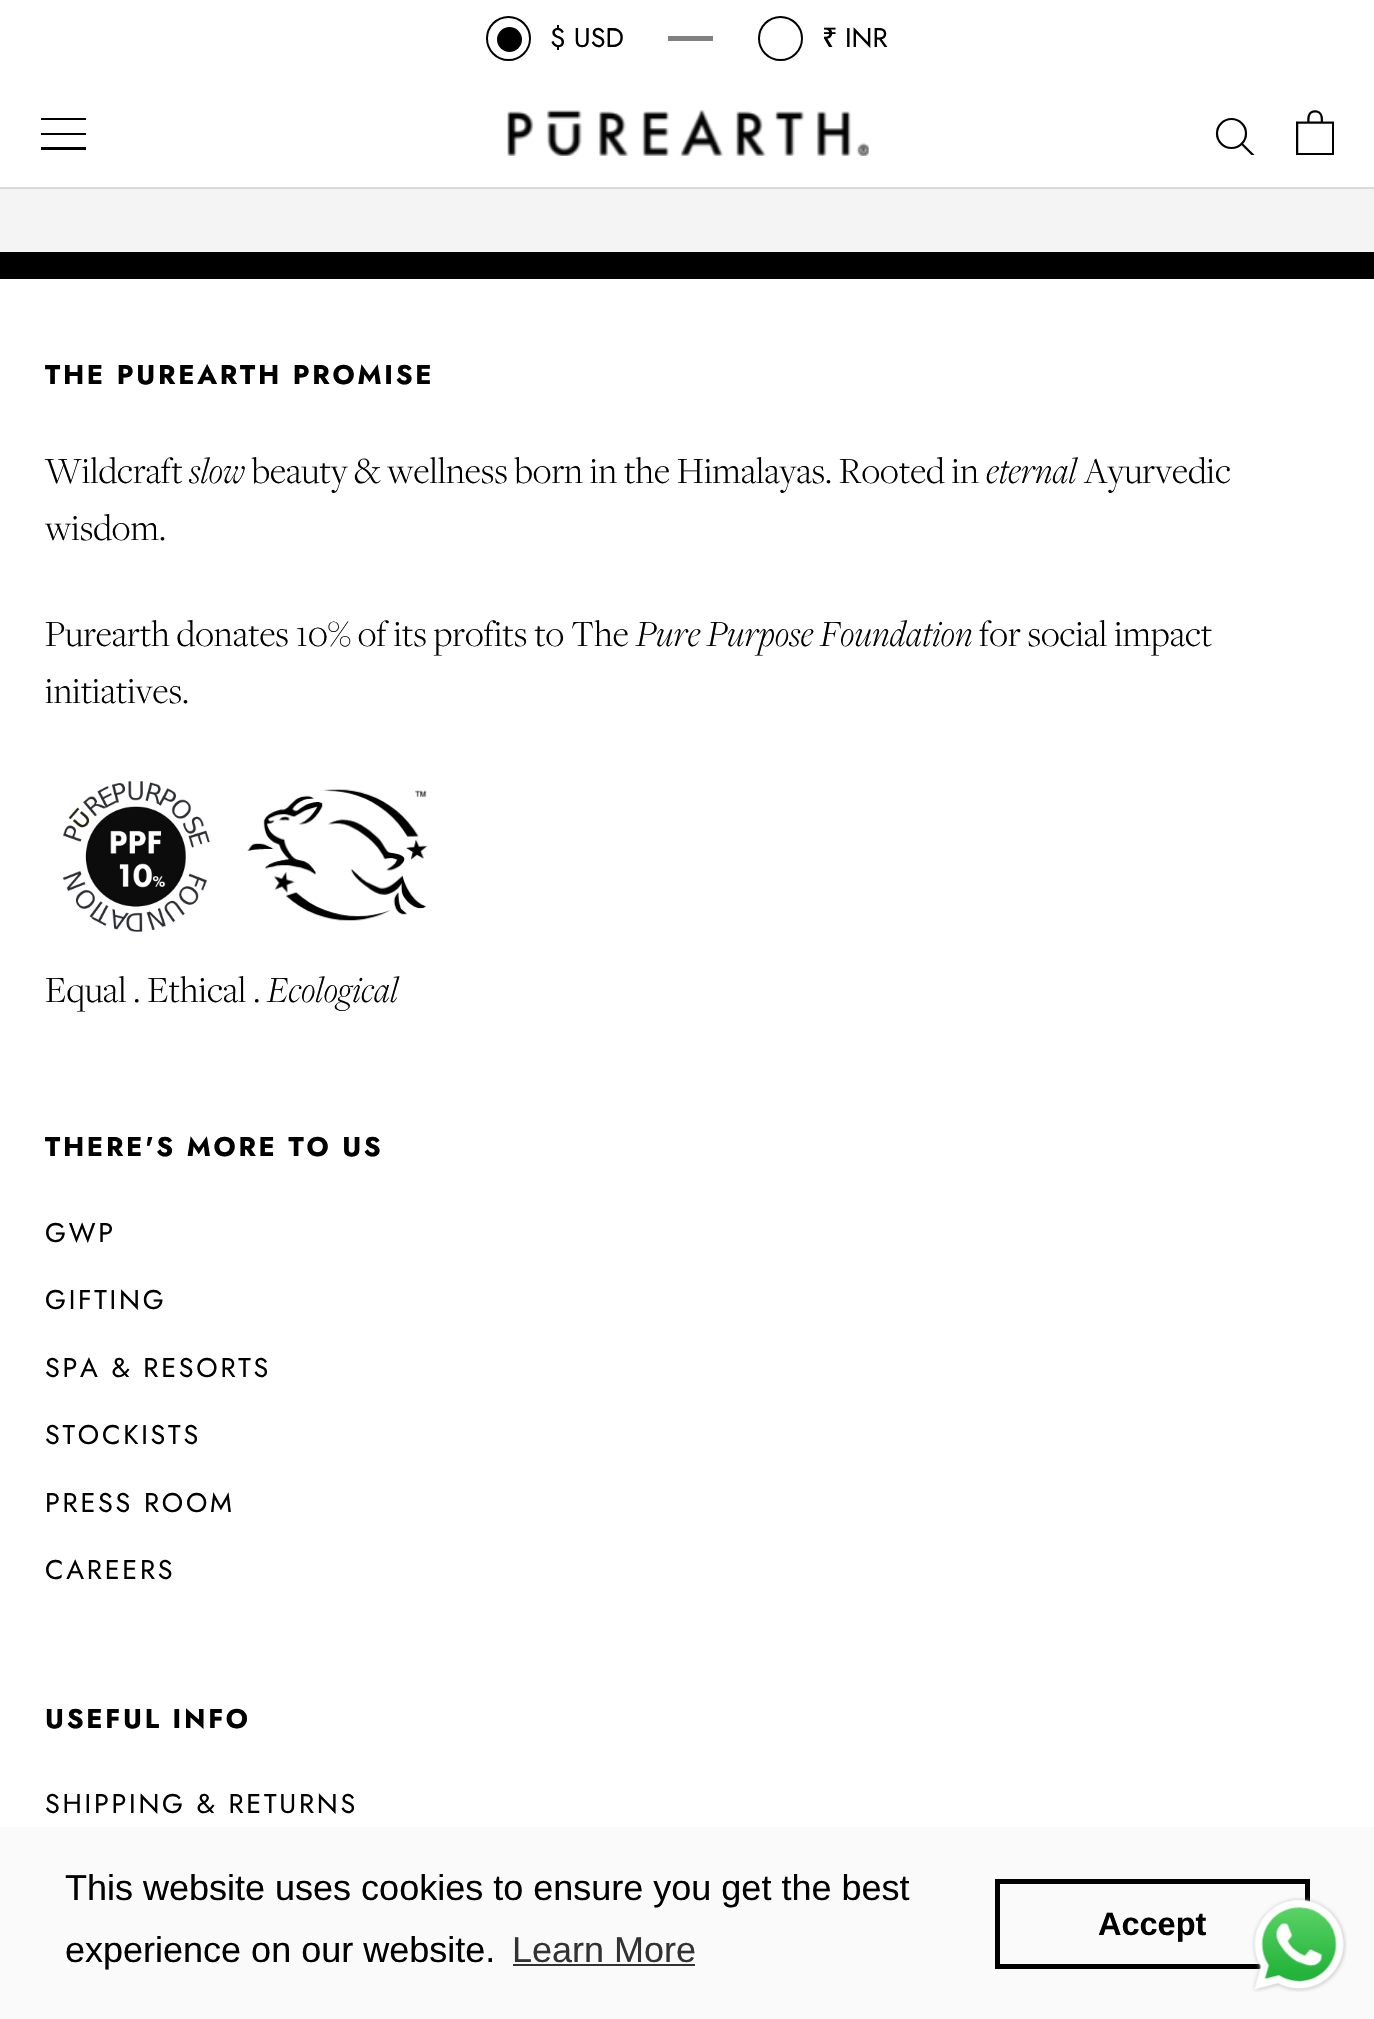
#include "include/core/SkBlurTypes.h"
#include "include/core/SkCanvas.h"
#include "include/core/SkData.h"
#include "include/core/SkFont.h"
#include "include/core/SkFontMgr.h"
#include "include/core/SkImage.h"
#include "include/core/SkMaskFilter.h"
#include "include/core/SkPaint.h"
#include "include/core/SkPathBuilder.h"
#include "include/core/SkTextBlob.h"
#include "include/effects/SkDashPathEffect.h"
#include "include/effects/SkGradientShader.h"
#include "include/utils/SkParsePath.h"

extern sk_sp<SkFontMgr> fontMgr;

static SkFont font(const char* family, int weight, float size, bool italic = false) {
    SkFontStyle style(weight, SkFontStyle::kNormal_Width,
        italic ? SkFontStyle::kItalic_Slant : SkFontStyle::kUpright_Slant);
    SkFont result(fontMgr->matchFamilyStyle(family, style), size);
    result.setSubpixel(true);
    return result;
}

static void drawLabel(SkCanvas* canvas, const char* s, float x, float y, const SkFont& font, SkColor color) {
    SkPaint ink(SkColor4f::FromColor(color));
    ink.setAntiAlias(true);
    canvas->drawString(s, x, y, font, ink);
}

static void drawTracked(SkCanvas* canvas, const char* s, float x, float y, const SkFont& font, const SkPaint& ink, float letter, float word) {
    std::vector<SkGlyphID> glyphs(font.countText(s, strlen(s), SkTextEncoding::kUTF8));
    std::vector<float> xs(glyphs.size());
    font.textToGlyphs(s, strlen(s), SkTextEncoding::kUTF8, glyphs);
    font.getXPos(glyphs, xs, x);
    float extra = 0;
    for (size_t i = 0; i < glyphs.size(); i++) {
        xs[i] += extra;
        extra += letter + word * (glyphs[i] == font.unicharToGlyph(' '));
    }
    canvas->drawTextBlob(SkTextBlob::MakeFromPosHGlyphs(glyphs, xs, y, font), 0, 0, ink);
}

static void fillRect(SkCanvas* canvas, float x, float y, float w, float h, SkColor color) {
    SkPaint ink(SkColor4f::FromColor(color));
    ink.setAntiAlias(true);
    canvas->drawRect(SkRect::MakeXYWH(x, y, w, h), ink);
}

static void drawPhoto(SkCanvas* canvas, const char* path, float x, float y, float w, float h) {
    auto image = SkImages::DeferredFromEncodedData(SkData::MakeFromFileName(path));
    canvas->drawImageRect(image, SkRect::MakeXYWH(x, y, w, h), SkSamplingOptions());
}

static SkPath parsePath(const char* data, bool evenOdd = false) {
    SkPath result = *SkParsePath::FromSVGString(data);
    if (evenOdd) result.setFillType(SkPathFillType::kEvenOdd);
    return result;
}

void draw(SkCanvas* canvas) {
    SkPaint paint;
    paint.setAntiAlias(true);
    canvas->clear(0xFFFFFFFF);
    fillRect(canvas, 0, 187, 1374, 2, 0xFFD9D9D9);
    paint.setStroke(true);
    paint.setStrokeWidth(2);
    paint.setColor(0xFF000000);
    canvas->drawCircle(508.5f, 38.5f, 21.5f, paint);
    paint.setStroke(false);
    canvas->drawCircle(509.5f, 39.5f, 12.5f, paint);
    SkFont font1 = font("Jost", 400, 27);
    drawLabel(canvas, "$ USD", 550, 47, font1, 0xFF000000);
    fillRect(canvas, 668, 36, 45, 5, 0xFF808080);
    paint.setStroke(true);
    canvas->drawCircle(780.5f, 38.5f, 21.5f, paint);
    SkFont font2 = font("Noto Sans", 500, 27);
    drawLabel(canvas, "₹", 822, 47, font2, 0xFF000000);
    drawLabel(canvas, "INR", 845, 47, font1, 0xFF000000);
    canvas->save();
    canvas->clipRect(SkRect::MakeXYWH(41, 117, 45, 34));
    paint.setStroke(false);
    canvas->drawPath(parsePath("M40 150V147H86V150ZM40 133H86V135H40ZM40 118H86V120H40Z"), paint);
    canvas->restore();
    drawPhoto(canvas, "assets/img1.png", 507, 110, 362, 46);
    canvas->save();
    canvas->clipRect(SkRect::MakeXYWH(1215, 117, 41, 38));
    paint.setStroke(true);
    paint.setStrokeWidth(2.2f);
    paint.setStrokeCap(SkPaint::kSquare_Cap);
    canvas->drawPath(parsePath("M1253 155L1242 144"), paint);
    canvas->restore();
    paint.setStrokeCap(SkPaint::kButt_Cap);
    canvas->drawCircle(1231.5f, 133.5f, 14.5f, paint);
    drawPhoto(canvas, "assets/img2.png", 1296, 110, 38, 45);
    fillRect(canvas, 0, 189, 1374, 63, 0xFFF4F4F4);
    fillRect(canvas, 0, 252, 1374, 27, 0xFF000000);
    SkFont font3 = font("Jost", 700, 27);
    paint.setStroke(false);
    drawTracked(canvas, "THE PUREARTH PROMISE", 45, 384, font3, paint, 2.75f, 0);
    SkFont font4 = font("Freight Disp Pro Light", 400, 38.25f);
    drawLabel(canvas, "Wildcraft", 45, 483, font4, 0xFF000000);
    SkFont font5 = font("Freight Disp Pro Light", 400, 38.25f, true);
    drawLabel(canvas, "slow", 189, 483, font5, 0xFF000000);
    drawLabel(canvas, "beauty & wellness born in the Himalayas. Rooted in", 252, 483, font4, 0xFF000000);
    drawLabel(canvas, "eternal", 986, 483, font5, 0xFF000000);
    drawLabel(canvas, "Ayurvedic", 1084, 483, font4, 0xFF000000);
    drawLabel(canvas, "wisdom.", 45, 540, font4, 0xFF000000);
    drawLabel(canvas, "Purearth donates 10% of its profits to The", 45, 646, font4, 0xFF000000);
    drawLabel(canvas, "Pure Purpose Foundation", 636, 646, font5, 0xFF000000);
    drawLabel(canvas, "for social impact", 979, 646, font4, 0xFF000000);
    drawLabel(canvas, "initiatives.", 45, 703, font4, 0xFF000000);
    drawPhoto(canvas, "assets/img3.png", 63, 781, 147, 151);
    drawPhoto(canvas, "assets/img4.png", 247, 789, 181, 132);
    drawLabel(canvas, "Equal . Ethical .", 45, 1002, font4, 0xFF000000);
    drawLabel(canvas, "Ecological", 267, 1002, font5, 0xFF000000);
    drawTracked(canvas, "THERE'S MORE TO US", 45, 1156, font3, paint, 2.75f, 0);
    drawTracked(canvas, "GWP", 45, 1242, font1, paint, 2.75f, 0);
    drawTracked(canvas, "GIFTING", 45, 1309, font1, paint, 2.75f, 0);
    drawTracked(canvas, "SPA & RESORTS", 45, 1377, font1, paint, 2.75f, 0);
    drawTracked(canvas, "STOCKISTS", 45, 1444, font1, paint, 2.75f, 0);
    drawTracked(canvas, "PRESS ROOM", 45, 1512, font1, paint, 2.75f, 0);
    drawTracked(canvas, "CAREERS", 45, 1579, font1, paint, 2.75f, 0);
    drawTracked(canvas, "USEFUL INFO", 45, 1728, font3, paint, 2.75f, 0);
    drawTracked(canvas, "SHIPPING & RETURNS", 45, 1813, font1, paint, 2.75f, 0);
    fillRect(canvas, 0, 1827, 1374, 192, 0xFFFAFAFA);
    SkFont font6 = font("Liberation Sans", 400, 36);
    drawLabel(canvas, "This website uses cookies to ensure you get the best", 65, 1900, font6, 0xFF000000);
    drawLabel(canvas, "experience on our website.", 65, 1962, font6, 0xFF000000);
    drawLabel(canvas, "Learn More", 512, 1962, font6, 0xFF323232);
    fillRect(canvas, 513, 1964, 182, 2, 0xFF323232);
    paint.setStroke(true);
    paint.setStrokeWidth(5);
    canvas->drawRect(SkRect::MakeXYWH(997.5f, 1881.5f, 310, 85), paint);
    SkFont font7 = font("Liberation Sans", 700, 32.5f);
    drawLabel(canvas, "Accept", 1098, 1935, font7, 0xFF000000);
    drawPhoto(canvas, "assets/img5.png", 1252, 1897, 95, 95);
}
